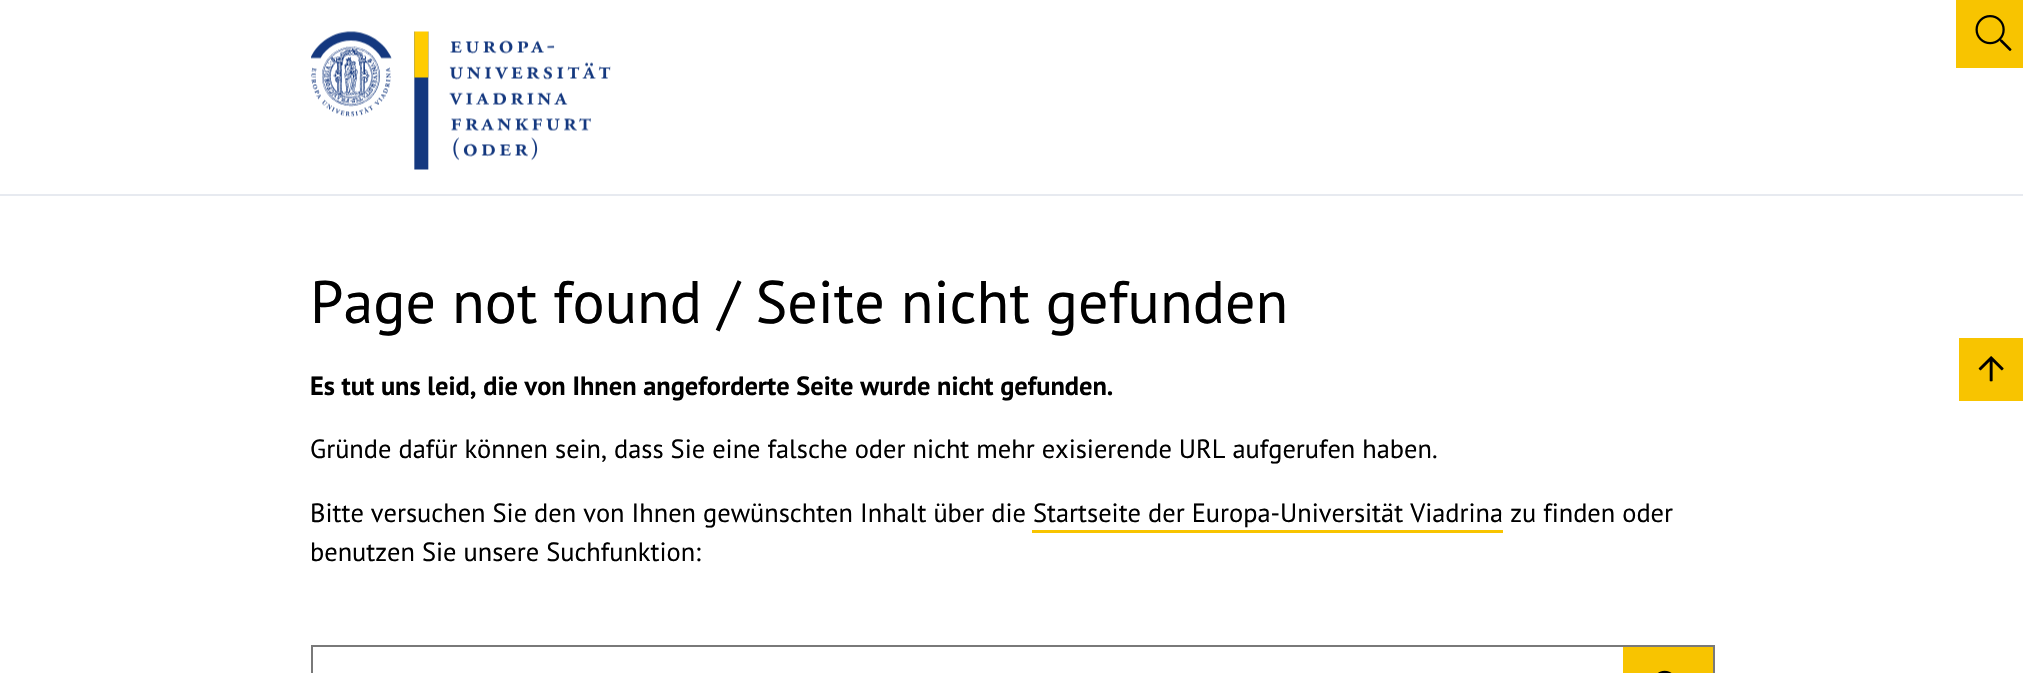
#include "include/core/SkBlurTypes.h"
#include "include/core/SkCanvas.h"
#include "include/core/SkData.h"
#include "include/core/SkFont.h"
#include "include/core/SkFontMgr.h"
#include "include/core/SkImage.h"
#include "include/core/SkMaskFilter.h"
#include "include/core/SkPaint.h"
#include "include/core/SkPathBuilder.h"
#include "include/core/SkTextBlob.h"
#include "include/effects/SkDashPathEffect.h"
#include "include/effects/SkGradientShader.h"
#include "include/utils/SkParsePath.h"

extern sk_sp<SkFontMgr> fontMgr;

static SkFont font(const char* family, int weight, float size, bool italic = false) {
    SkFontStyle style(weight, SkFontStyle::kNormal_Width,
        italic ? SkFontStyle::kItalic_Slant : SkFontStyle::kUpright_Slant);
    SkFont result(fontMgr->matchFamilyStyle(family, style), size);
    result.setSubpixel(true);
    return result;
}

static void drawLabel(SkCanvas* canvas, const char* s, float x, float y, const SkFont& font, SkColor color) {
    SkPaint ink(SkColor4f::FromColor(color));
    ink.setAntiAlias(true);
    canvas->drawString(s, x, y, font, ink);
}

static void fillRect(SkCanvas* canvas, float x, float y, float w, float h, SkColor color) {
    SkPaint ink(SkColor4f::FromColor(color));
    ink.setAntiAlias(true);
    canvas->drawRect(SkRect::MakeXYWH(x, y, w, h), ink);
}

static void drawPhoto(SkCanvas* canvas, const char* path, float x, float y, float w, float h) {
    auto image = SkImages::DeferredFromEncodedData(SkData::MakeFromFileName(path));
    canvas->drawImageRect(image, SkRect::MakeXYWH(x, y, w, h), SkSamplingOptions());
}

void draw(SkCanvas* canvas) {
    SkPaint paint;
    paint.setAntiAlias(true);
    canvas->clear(0xFFFFFFFF);
    fillRect(canvas, 0, 194, 2023, 2, 0xFFE7EAF0);
    drawPhoto(canvas, "assets/img1.png", 311, 31, 300, 139);
    fillRect(canvas, 1956, 0, 67, 68, 0xFFF8C400);
    drawPhoto(canvas, "assets/img2.png", 1975, 15, 37, 36);
    SkFont font1 = font("PT Sans", 400, 60);
    drawLabel(canvas, "Page not found / Seite nicht gefunden", 310, 323, font1, 0xFF000000);
    SkFont font2 = font("PT Sans", 700, 26.4f);
    drawLabel(canvas, "Es tut uns leid, die von Ihnen angeforderte Seite wurde nicht gefunden.", 310, 395, font2, 0xFF000000);
    SkFont font3 = font("PT Sans", 400, 26.4f);
    drawLabel(canvas, "Gründe dafür können sein, dass Sie eine falsche oder nicht mehr exisierende URL aufgerufen haben.", 310, 458, font3, 0xFF000000);
    drawLabel(canvas, "Bitte versuchen Sie den von Ihnen gewünschten Inhalt über die Startseite der Europa-Universität Viadrina zu finden oder", 310, 522, font3, 0xFF000000);
    fillRect(canvas, 1032, 530, 471, 3, 0xFFF8C400);
    drawLabel(canvas, "benutzen Sie unsere Suchfunktion:", 310, 561, font3, 0xFF000000);
    paint.setStroke(true);
    paint.setStrokeWidth(2);
    paint.setColor(0xFF797979);
    canvas->drawRect(SkRect::MakeXYWH(312, 646, 1402, 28), paint);
    fillRect(canvas, 1623, 647, 90, 26, 0xFFF8C400);
    drawPhoto(canvas, "assets/img3.png", 1658, 670, 14, 3);
    fillRect(canvas, 1959, 338, 64, 63, 0xFFF8C400);
    drawPhoto(canvas, "assets/img4.png", 1978, 356, 26, 26);
}
